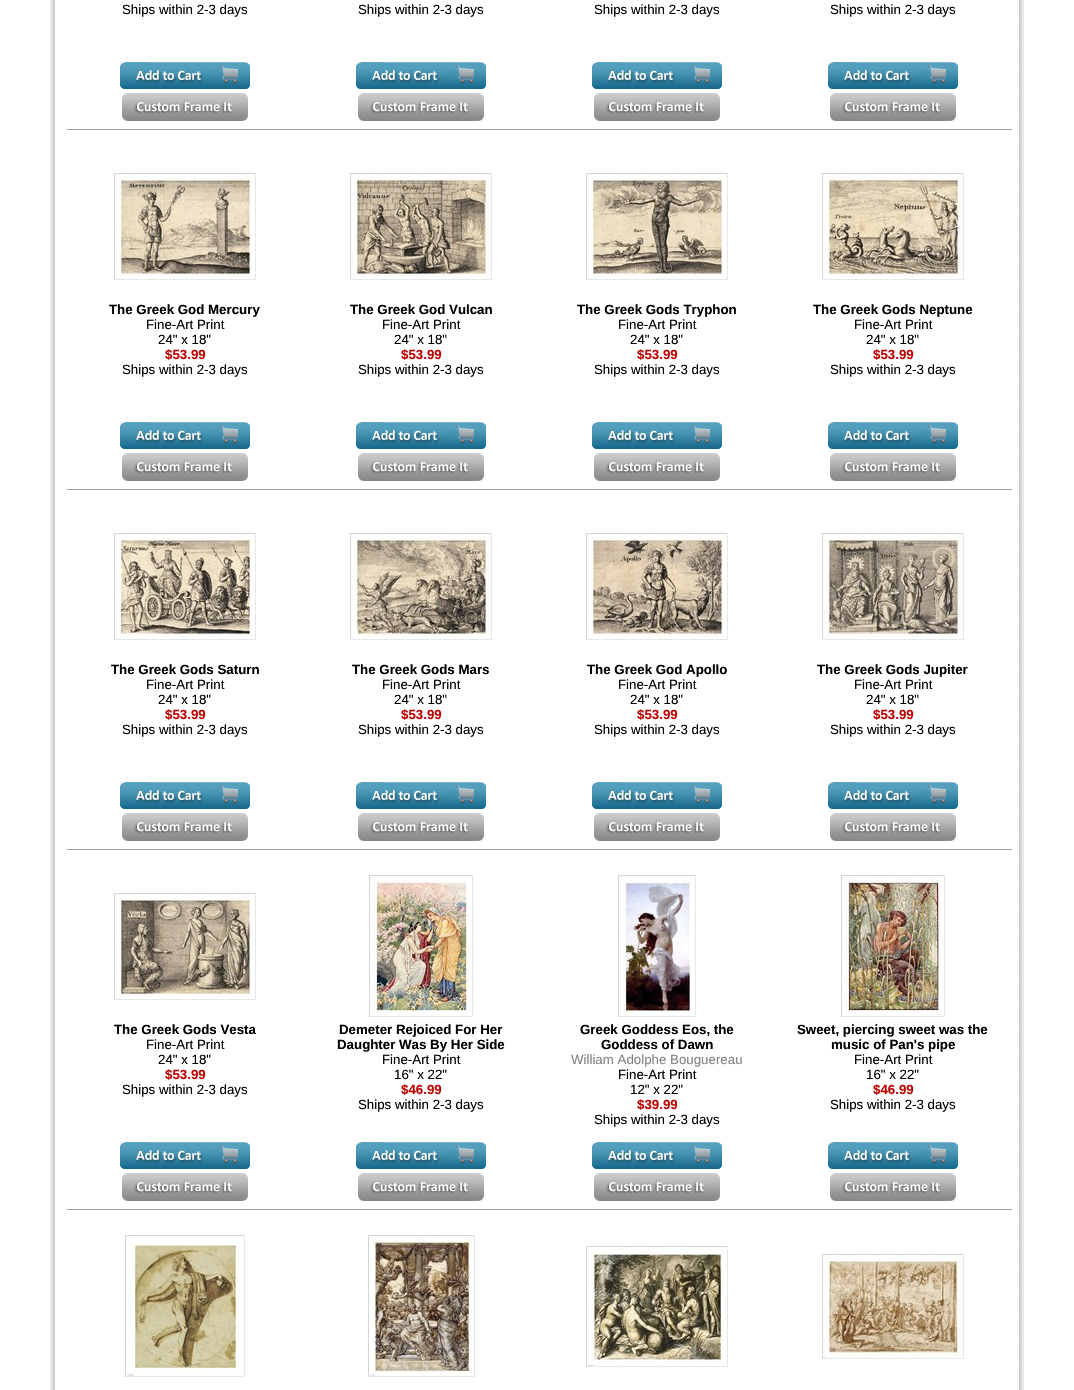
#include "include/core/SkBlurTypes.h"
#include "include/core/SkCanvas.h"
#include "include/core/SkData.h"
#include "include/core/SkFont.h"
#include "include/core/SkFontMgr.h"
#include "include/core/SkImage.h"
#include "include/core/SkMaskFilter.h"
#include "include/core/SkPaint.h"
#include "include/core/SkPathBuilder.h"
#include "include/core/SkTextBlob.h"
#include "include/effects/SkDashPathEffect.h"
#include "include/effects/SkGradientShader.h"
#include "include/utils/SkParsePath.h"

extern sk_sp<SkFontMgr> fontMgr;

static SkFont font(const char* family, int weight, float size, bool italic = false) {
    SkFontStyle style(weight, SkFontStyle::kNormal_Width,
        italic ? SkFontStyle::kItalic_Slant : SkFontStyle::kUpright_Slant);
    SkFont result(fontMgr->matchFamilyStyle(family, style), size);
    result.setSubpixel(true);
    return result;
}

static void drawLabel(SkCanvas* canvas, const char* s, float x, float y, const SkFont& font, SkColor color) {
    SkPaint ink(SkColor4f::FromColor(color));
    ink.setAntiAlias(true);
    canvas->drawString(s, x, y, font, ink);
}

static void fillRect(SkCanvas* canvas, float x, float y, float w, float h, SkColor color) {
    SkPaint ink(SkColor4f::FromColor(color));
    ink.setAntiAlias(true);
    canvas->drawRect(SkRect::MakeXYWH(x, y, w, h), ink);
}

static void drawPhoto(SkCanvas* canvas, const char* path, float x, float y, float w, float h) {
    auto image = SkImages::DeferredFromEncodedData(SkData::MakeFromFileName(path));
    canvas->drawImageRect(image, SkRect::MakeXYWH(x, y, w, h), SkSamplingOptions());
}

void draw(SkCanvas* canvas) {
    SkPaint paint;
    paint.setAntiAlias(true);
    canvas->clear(0xFFFFFFFF);
    drawPhoto(canvas, "assets/img1.png", 50, 0, 974, 1390);
    SkFont font1 = font("Liberation Sans", 400, 13.3f);
    drawLabel(canvas, "Ships within 2-3 days", 122, 14, font1, 0xFF000000);
    drawPhoto(canvas, "assets/img2.png", 120, 62, 130, 27);
    drawPhoto(canvas, "assets/img3.png", 122, 93, 126, 28);
    drawLabel(canvas, "Ships within 2-3 days", 358, 14, font1, 0xFF000000);
    drawPhoto(canvas, "assets/img2.png", 356, 62, 130, 27);
    drawPhoto(canvas, "assets/img3.png", 358, 93, 126, 28);
    drawLabel(canvas, "Ships within 2-3 days", 594, 14, font1, 0xFF000000);
    drawPhoto(canvas, "assets/img2.png", 592, 62, 130, 27);
    drawPhoto(canvas, "assets/img3.png", 594, 93, 126, 28);
    fillRect(canvas, 67, 129, 945, 1, 0xFF9F9F9F);
    drawLabel(canvas, "Ships within 2-3 days", 830, 14, font1, 0xFF000000);
    drawPhoto(canvas, "assets/img2.png", 828, 62, 130, 27);
    drawPhoto(canvas, "assets/img3.png", 830, 93, 126, 28);
    fillRect(canvas, 114, 173, 142, 1, 0xFFD5D5D5);
    fillRect(canvas, 255, 173, 1, 107, 0xFFE7E7E7);
    fillRect(canvas, 114, 279, 142, 1, 0xFFE7E7E7);
    fillRect(canvas, 114, 173, 1, 107, 0xFFD5D5D5);
    drawPhoto(canvas, "assets/img4.png", 115, 174, 137, 105);
    SkFont font2 = font("Liberation Sans", 700, 13.3f);
    drawLabel(canvas, "The Greek God Mercury", 109, 314, font2, 0xFF000000);
    drawLabel(canvas, "Fine-Art Print", 146, 329, font1, 0xFF000000);
    drawLabel(canvas, "24\" x 18\"", 158, 344, font1, 0xFF000000);
    drawLabel(canvas, "$53.99", 165, 359, font2, 0xFFBC0404);
    drawLabel(canvas, "Ships within 2-3 days", 122, 374, font1, 0xFF000000);
    drawPhoto(canvas, "assets/img2.png", 120, 422, 130, 27);
    drawPhoto(canvas, "assets/img3.png", 122, 453, 126, 28);
    fillRect(canvas, 350, 173, 142, 1, 0xFFD5D5D5);
    fillRect(canvas, 491, 173, 1, 107, 0xFFE7E7E7);
    fillRect(canvas, 350, 279, 142, 1, 0xFFE7E7E7);
    fillRect(canvas, 350, 173, 1, 107, 0xFFD5D5D5);
    drawPhoto(canvas, "assets/img5.png", 351, 174, 138, 105);
    drawLabel(canvas, "The Greek God Vulcan", 350, 314, font2, 0xFF000000);
    drawLabel(canvas, "Fine-Art Print", 382, 329, font1, 0xFF000000);
    drawLabel(canvas, "24\" x 18\"", 394, 344, font1, 0xFF000000);
    drawLabel(canvas, "$53.99", 401, 359, font2, 0xFFBC0404);
    drawLabel(canvas, "Ships within 2-3 days", 358, 374, font1, 0xFF000000);
    drawPhoto(canvas, "assets/img2.png", 356, 422, 130, 27);
    drawPhoto(canvas, "assets/img3.png", 358, 453, 126, 28);
    fillRect(canvas, 586, 173, 142, 1, 0xFFD5D5D5);
    fillRect(canvas, 727, 173, 1, 107, 0xFFE7E7E7);
    fillRect(canvas, 586, 279, 142, 1, 0xFFE7E7E7);
    fillRect(canvas, 586, 173, 1, 107, 0xFFD5D5D5);
    drawPhoto(canvas, "assets/img6.png", 587, 174, 137, 105);
    drawLabel(canvas, "The Greek Gods Tryphon", 577, 314, font2, 0xFF000000);
    drawLabel(canvas, "Fine-Art Print", 618, 329, font1, 0xFF000000);
    drawLabel(canvas, "24\" x 18\"", 630, 344, font1, 0xFF000000);
    drawLabel(canvas, "$53.99", 637, 359, font2, 0xFFBC0404);
    drawLabel(canvas, "Ships within 2-3 days", 594, 374, font1, 0xFF000000);
    drawPhoto(canvas, "assets/img2.png", 592, 422, 130, 27);
    drawPhoto(canvas, "assets/img3.png", 594, 453, 126, 28);
    fillRect(canvas, 67, 489, 945, 1, 0xFF9F9F9F);
    fillRect(canvas, 822, 173, 142, 1, 0xFFD5D5D5);
    fillRect(canvas, 963, 173, 1, 107, 0xFFE7E7E7);
    fillRect(canvas, 822, 279, 142, 1, 0xFFE7E7E7);
    fillRect(canvas, 822, 173, 1, 107, 0xFFD5D5D5);
    drawPhoto(canvas, "assets/img7.png", 823, 174, 137, 105);
    drawLabel(canvas, "The Greek Gods Neptune", 813, 314, font2, 0xFF000000);
    drawLabel(canvas, "Fine-Art Print", 854, 329, font1, 0xFF000000);
    drawLabel(canvas, "24\" x 18\"", 866, 344, font1, 0xFF000000);
    drawLabel(canvas, "$53.99", 873, 359, font2, 0xFFBC0404);
    drawLabel(canvas, "Ships within 2-3 days", 830, 374, font1, 0xFF000000);
    drawPhoto(canvas, "assets/img2.png", 828, 422, 130, 27);
    drawPhoto(canvas, "assets/img3.png", 830, 453, 126, 28);
    fillRect(canvas, 114, 533, 142, 1, 0xFFD5D5D5);
    fillRect(canvas, 255, 533, 1, 107, 0xFFE7E7E7);
    fillRect(canvas, 114, 639, 142, 1, 0xFFE7E7E7);
    fillRect(canvas, 114, 533, 1, 107, 0xFFD5D5D5);
    drawPhoto(canvas, "assets/img8.png", 115, 534, 138, 105);
    drawLabel(canvas, "The Greek Gods Saturn", 111, 674, font2, 0xFF000000);
    drawLabel(canvas, "Fine-Art Print", 146, 689, font1, 0xFF000000);
    drawLabel(canvas, "24\" x 18\"", 158, 704, font1, 0xFF000000);
    drawLabel(canvas, "$53.99", 165, 719, font2, 0xFFBC0404);
    drawLabel(canvas, "Ships within 2-3 days", 122, 734, font1, 0xFF000000);
    drawPhoto(canvas, "assets/img2.png", 120, 782, 130, 27);
    drawPhoto(canvas, "assets/img3.png", 122, 813, 126, 28);
    fillRect(canvas, 350, 533, 142, 1, 0xFFD5D5D5);
    fillRect(canvas, 491, 533, 1, 107, 0xFFE7E7E7);
    fillRect(canvas, 350, 639, 142, 1, 0xFFE7E7E7);
    fillRect(canvas, 350, 533, 1, 107, 0xFFD5D5D5);
    drawPhoto(canvas, "assets/img9.png", 351, 534, 137, 105);
    drawLabel(canvas, "The Greek Gods Mars", 352, 674, font2, 0xFF000000);
    drawLabel(canvas, "Fine-Art Print", 382, 689, font1, 0xFF000000);
    drawLabel(canvas, "24\" x 18\"", 394, 704, font1, 0xFF000000);
    drawLabel(canvas, "$53.99", 401, 719, font2, 0xFFBC0404);
    drawLabel(canvas, "Ships within 2-3 days", 358, 734, font1, 0xFF000000);
    drawPhoto(canvas, "assets/img2.png", 356, 782, 130, 27);
    drawPhoto(canvas, "assets/img3.png", 358, 813, 126, 28);
    fillRect(canvas, 586, 533, 142, 1, 0xFFD5D5D5);
    fillRect(canvas, 727, 533, 1, 107, 0xFFE7E7E7);
    fillRect(canvas, 586, 639, 142, 1, 0xFFE7E7E7);
    fillRect(canvas, 586, 533, 1, 107, 0xFFD5D5D5);
    drawPhoto(canvas, "assets/img10.png", 587, 534, 140, 105);
    drawLabel(canvas, "The Greek God Apollo", 587, 674, font2, 0xFF000000);
    drawLabel(canvas, "Fine-Art Print", 618, 689, font1, 0xFF000000);
    drawLabel(canvas, "24\" x 18\"", 630, 704, font1, 0xFF000000);
    drawLabel(canvas, "$53.99", 637, 719, font2, 0xFFBC0404);
    drawLabel(canvas, "Ships within 2-3 days", 594, 734, font1, 0xFF000000);
    drawPhoto(canvas, "assets/img2.png", 592, 782, 130, 27);
    drawPhoto(canvas, "assets/img3.png", 594, 813, 126, 28);
    fillRect(canvas, 67, 849, 945, 1, 0xFF9F9F9F);
    fillRect(canvas, 822, 533, 142, 1, 0xFFD5D5D5);
    fillRect(canvas, 963, 533, 1, 107, 0xFFE7E7E7);
    fillRect(canvas, 822, 639, 142, 1, 0xFFE7E7E7);
    fillRect(canvas, 822, 533, 1, 107, 0xFFD5D5D5);
    drawPhoto(canvas, "assets/img11.png", 823, 534, 137, 105);
    drawLabel(canvas, "The Greek Gods Jupiter", 817, 674, font2, 0xFF000000);
    drawLabel(canvas, "Fine-Art Print", 854, 689, font1, 0xFF000000);
    drawLabel(canvas, "24\" x 18\"", 866, 704, font1, 0xFF000000);
    drawLabel(canvas, "$53.99", 873, 719, font2, 0xFFBC0404);
    drawLabel(canvas, "Ships within 2-3 days", 830, 734, font1, 0xFF000000);
    drawPhoto(canvas, "assets/img2.png", 828, 782, 130, 27);
    drawPhoto(canvas, "assets/img3.png", 830, 813, 126, 28);
    fillRect(canvas, 114, 893, 142, 1, 0xFFD5D5D5);
    fillRect(canvas, 255, 893, 1, 107, 0xFFE7E7E7);
    fillRect(canvas, 114, 999, 142, 1, 0xFFE7E7E7);
    fillRect(canvas, 114, 893, 1, 107, 0xFFD5D5D5);
    drawPhoto(canvas, "assets/img12.png", 115, 894, 138, 105);
    drawLabel(canvas, "The Greek Gods Vesta", 114, 1034, font2, 0xFF000000);
    drawLabel(canvas, "Fine-Art Print", 146, 1049, font1, 0xFF000000);
    drawLabel(canvas, "24\" x 18\"", 158, 1064, font1, 0xFF000000);
    drawLabel(canvas, "$53.99", 165, 1079, font2, 0xFFBC0404);
    drawLabel(canvas, "Ships within 2-3 days", 122, 1094, font1, 0xFF000000);
    drawPhoto(canvas, "assets/img2.png", 120, 1142, 130, 27);
    drawPhoto(canvas, "assets/img3.png", 122, 1173, 126, 28);
    fillRect(canvas, 369, 875, 104, 1, 0xFFD5D5D5);
    fillRect(canvas, 472, 875, 1, 142, 0xFFE7E7E7);
    fillRect(canvas, 369, 1016, 104, 1, 0xFFE7E7E7);
    fillRect(canvas, 369, 875, 1, 142, 0xFFD5D5D5);
    drawPhoto(canvas, "assets/img13.png", 370, 876, 100, 140);
    drawLabel(canvas, "Demeter Rejoiced For Her", 339, 1034, font2, 0xFF000000);
    drawLabel(canvas, "Daughter Was By Her Side", 337, 1049, font2, 0xFF000000);
    drawLabel(canvas, "Fine-Art Print", 382, 1064, font1, 0xFF000000);
    drawLabel(canvas, "16\" x 22\"", 394, 1079, font1, 0xFF000000);
    drawLabel(canvas, "$46.99", 401, 1094, font2, 0xFFBC0404);
    drawLabel(canvas, "Ships within 2-3 days", 358, 1109, font1, 0xFF000000);
    drawPhoto(canvas, "assets/img2.png", 356, 1142, 130, 27);
    drawPhoto(canvas, "assets/img3.png", 358, 1173, 126, 28);
    fillRect(canvas, 618, 875, 78, 1, 0xFFD5D5D5);
    fillRect(canvas, 695, 875, 1, 142, 0xFFE7E7E7);
    fillRect(canvas, 618, 1016, 78, 1, 0xFFE7E7E7);
    fillRect(canvas, 618, 875, 1, 142, 0xFFD5D5D5);
    drawPhoto(canvas, "assets/img14.png", 619, 876, 76, 140);
    drawLabel(canvas, "Greek Goddess Eos, the", 580, 1034, font2, 0xFF000000);
    drawLabel(canvas, "Goddess of Dawn", 601, 1049, font2, 0xFF000000);
    drawLabel(canvas, "William Adolphe Bouguereau", 571, 1064, font1, 0xFF848283);
    drawLabel(canvas, "Fine-Art Print", 618, 1079, font1, 0xFF000000);
    drawLabel(canvas, "12\" x 22\"", 630, 1094, font1, 0xFF000000);
    drawLabel(canvas, "$39.99", 637, 1109, font2, 0xFFBC0404);
    drawLabel(canvas, "Ships within 2-3 days", 594, 1124, font1, 0xFF000000);
    drawPhoto(canvas, "assets/img2.png", 592, 1142, 130, 27);
    drawPhoto(canvas, "assets/img3.png", 594, 1173, 126, 28);
    fillRect(canvas, 67, 1209, 945, 1, 0xFF9F9F9F);
    fillRect(canvas, 841, 875, 104, 1, 0xFFD5D5D5);
    fillRect(canvas, 944, 875, 1, 142, 0xFFE7E7E7);
    fillRect(canvas, 841, 1016, 104, 1, 0xFFE7E7E7);
    fillRect(canvas, 841, 875, 1, 142, 0xFFD5D5D5);
    drawPhoto(canvas, "assets/img15.png", 842, 876, 99, 140);
    drawLabel(canvas, "Sweet, piercing sweet was the", 797, 1034, font2, 0xFF000000);
    drawLabel(canvas, "music of Pan's pipe", 831, 1049, font2, 0xFF000000);
    drawLabel(canvas, "Fine-Art Print", 854, 1064, font1, 0xFF000000);
    drawLabel(canvas, "16\" x 22\"", 866, 1079, font1, 0xFF000000);
    drawLabel(canvas, "$46.99", 873, 1094, font2, 0xFFBC0404);
    drawLabel(canvas, "Ships within 2-3 days", 830, 1109, font1, 0xFF000000);
    drawPhoto(canvas, "assets/img2.png", 828, 1142, 130, 27);
    drawPhoto(canvas, "assets/img3.png", 830, 1173, 126, 28);
    fillRect(canvas, 125, 1235, 120, 1, 0xFFD5D5D5);
    fillRect(canvas, 244, 1235, 1, 142, 0xFFE7E7E7);
    fillRect(canvas, 125, 1376, 120, 1, 0xFFE7E7E7);
    fillRect(canvas, 125, 1235, 1, 142, 0xFFD5D5D5);
    drawPhoto(canvas, "assets/img16.png", 126, 1236, 112, 140);
    fillRect(canvas, 368, 1235, 107, 1, 0xFFD5D5D5);
    fillRect(canvas, 474, 1235, 1, 142, 0xFFE7E7E7);
    fillRect(canvas, 368, 1376, 107, 1, 0xFFE7E7E7);
    fillRect(canvas, 368, 1235, 1, 142, 0xFFD5D5D5);
    drawPhoto(canvas, "assets/img17.png", 369, 1236, 104, 140);
    fillRect(canvas, 586, 1246, 142, 1, 0xFFD5D5D5);
    fillRect(canvas, 727, 1246, 1, 121, 0xFFE7E7E7);
    fillRect(canvas, 586, 1366, 142, 1, 0xFFE7E7E7);
    fillRect(canvas, 586, 1246, 1, 121, 0xFFD5D5D5);
    drawPhoto(canvas, "assets/img18.png", 587, 1247, 140, 119);
    fillRect(canvas, 822, 1254, 142, 1, 0xFFD5D5D5);
    fillRect(canvas, 963, 1254, 1, 105, 0xFFE7E7E7);
    fillRect(canvas, 822, 1358, 142, 1, 0xFFE7E7E7);
    fillRect(canvas, 822, 1254, 1, 105, 0xFFD5D5D5);
    drawPhoto(canvas, "assets/img19.png", 823, 1255, 138, 103);
}
